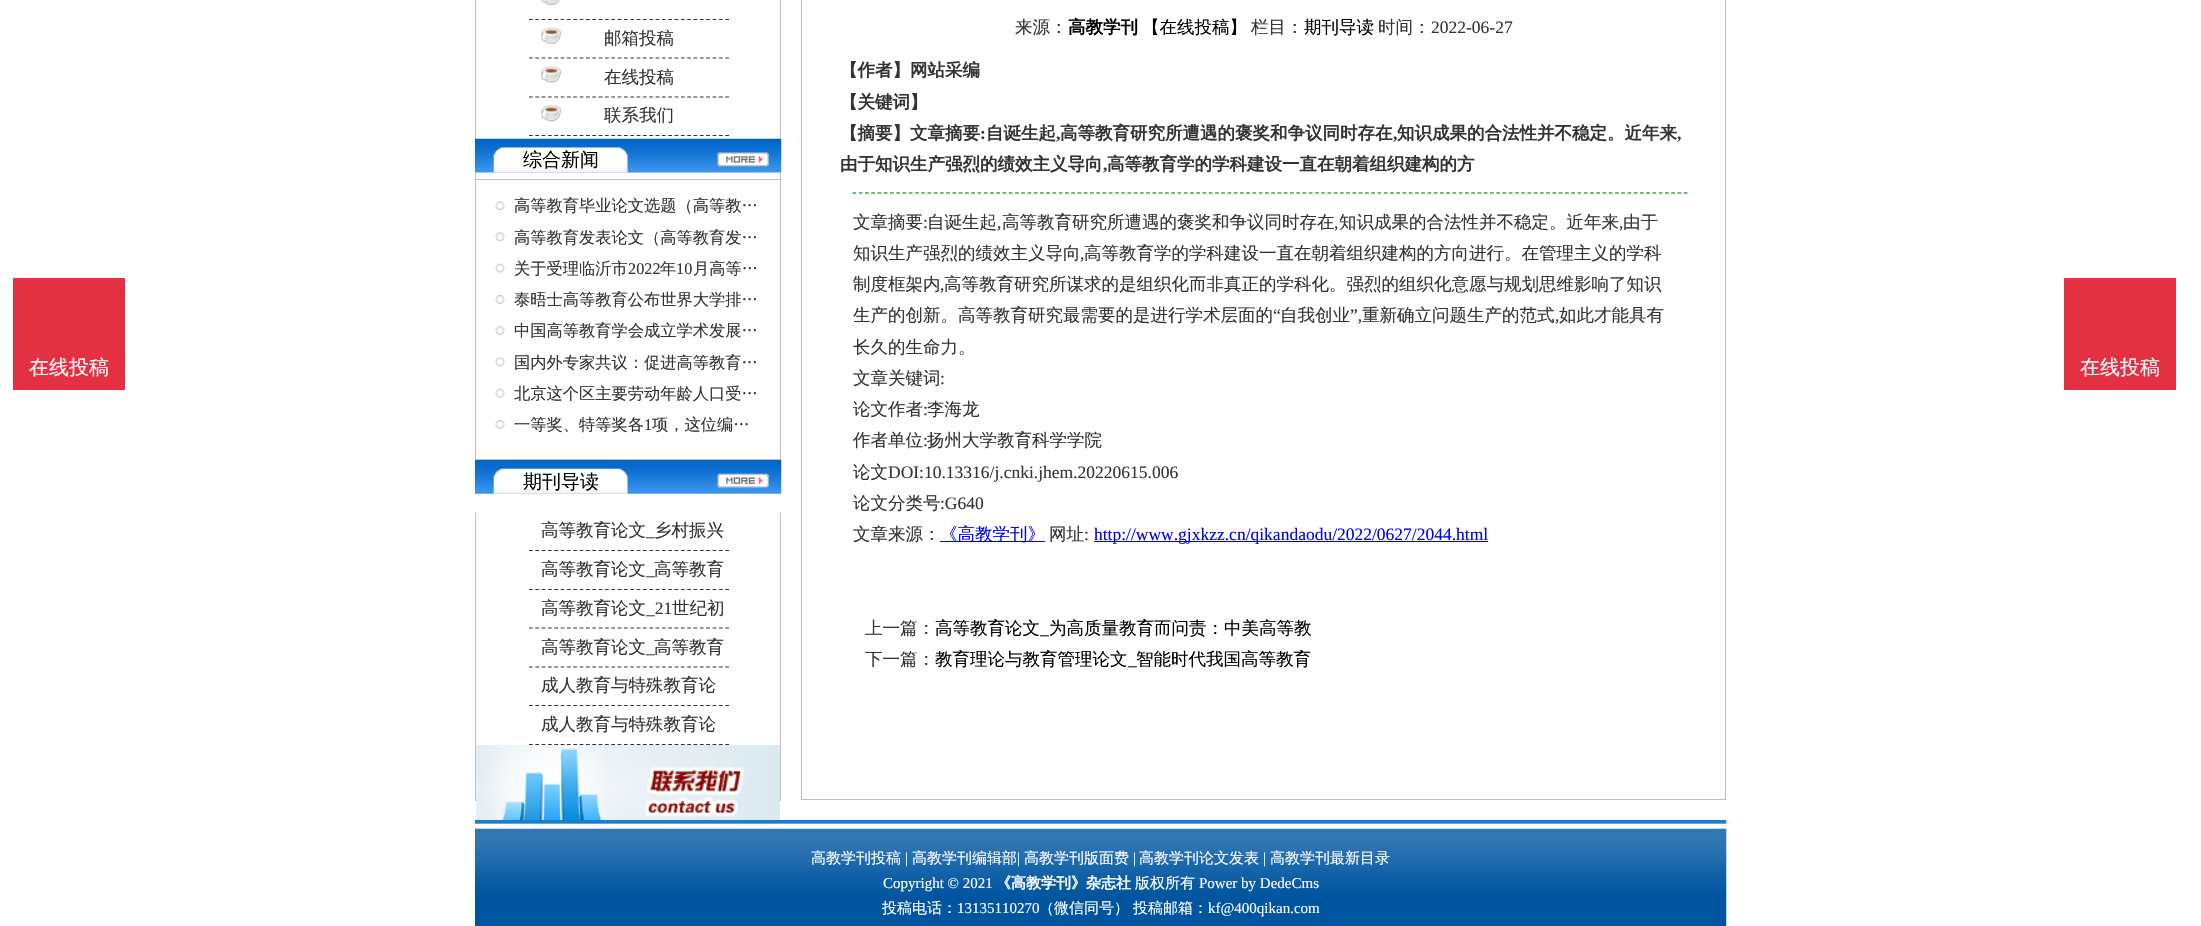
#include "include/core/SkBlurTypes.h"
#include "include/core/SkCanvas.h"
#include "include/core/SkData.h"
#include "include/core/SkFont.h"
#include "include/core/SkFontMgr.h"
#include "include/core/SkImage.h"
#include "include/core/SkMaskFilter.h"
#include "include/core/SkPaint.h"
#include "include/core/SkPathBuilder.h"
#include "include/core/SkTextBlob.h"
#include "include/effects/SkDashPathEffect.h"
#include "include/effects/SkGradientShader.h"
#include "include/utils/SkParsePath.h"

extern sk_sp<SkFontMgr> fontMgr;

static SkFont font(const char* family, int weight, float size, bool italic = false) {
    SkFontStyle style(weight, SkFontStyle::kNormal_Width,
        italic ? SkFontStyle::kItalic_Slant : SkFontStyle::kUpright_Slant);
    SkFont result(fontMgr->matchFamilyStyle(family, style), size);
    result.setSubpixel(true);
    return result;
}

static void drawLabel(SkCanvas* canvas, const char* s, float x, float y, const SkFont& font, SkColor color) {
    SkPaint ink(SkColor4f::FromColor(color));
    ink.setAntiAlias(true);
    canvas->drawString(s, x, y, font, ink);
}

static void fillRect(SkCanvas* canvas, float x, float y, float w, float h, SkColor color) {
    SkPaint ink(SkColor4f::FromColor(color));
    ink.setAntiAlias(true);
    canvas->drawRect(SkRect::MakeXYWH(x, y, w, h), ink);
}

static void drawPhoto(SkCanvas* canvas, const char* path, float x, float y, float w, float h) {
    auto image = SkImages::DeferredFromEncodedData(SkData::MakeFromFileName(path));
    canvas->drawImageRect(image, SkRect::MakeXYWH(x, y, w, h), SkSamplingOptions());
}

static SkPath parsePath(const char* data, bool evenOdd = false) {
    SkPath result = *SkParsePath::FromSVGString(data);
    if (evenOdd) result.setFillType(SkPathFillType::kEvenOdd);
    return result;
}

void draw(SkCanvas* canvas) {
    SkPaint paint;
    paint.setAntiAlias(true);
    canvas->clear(0xFFFFFFFF);
    fillRect(canvas, 13, 278, 112, 112, 0xFFE33043);
    SkFont font1 = font("WenQuanYi Zen Hei", 500, 20);
    drawLabel(canvas, "在线投稿", 29, 374, font1, 0xFFFFFFFF);
    fillRect(canvas, 780, 0, 1, 180, 0xFFBFBFBF);
    fillRect(canvas, 475, 179, 306, 1, 0xFFBFBFBF);
    fillRect(canvas, 475, 0, 1, 180, 0xFFBFBFBF);
    paint.setStroke(true);
    paint.setStrokeWidth(1.2f);
    paint.setColor(0xFF333333);
    paint.setPathEffect(SkDashPathEffect::Make({{3.75f, 2.58f}}, 0));
    canvas->drawPath(parsePath("M529 19.5H729"), paint);
    paint.setPathEffect(nullptr);
    drawPhoto(canvas, "assets/img1.png", 541, 0, 19, 5);
    paint.setPathEffect(SkDashPathEffect::Make({{3.75f, 2.58f}}, 0));
    canvas->drawPath(parsePath("M529 58H729"), paint);
    paint.setPathEffect(nullptr);
    drawPhoto(canvas, "assets/img2.png", 541, 27, 21, 17);
    SkFont font2 = font("WenQuanYi Zen Hei", 500, 17.5f);
    drawLabel(canvas, "邮箱投稿", 604, 44, font2, 0xFF333333);
    paint.setPathEffect(SkDashPathEffect::Make({{3.75f, 2.58f}}, 0));
    canvas->drawPath(parsePath("M529 97H729"), paint);
    paint.setPathEffect(nullptr);
    drawPhoto(canvas, "assets/img3.png", 541, 66, 21, 17);
    drawLabel(canvas, "在线投稿", 604, 83, font2, 0xFF333333);
    paint.setPathEffect(SkDashPathEffect::Make({{3.75f, 2.58f}}, 0));
    canvas->drawPath(parsePath("M529 135.5H729"), paint);
    paint.setPathEffect(nullptr);
    drawPhoto(canvas, "assets/img4.png", 541, 105, 21, 17);
    drawLabel(canvas, "联系我们", 604, 121, font2, 0xFF333333);
    drawPhoto(canvas, "assets/img5.png", 475, 138, 307, 35);
    drawPhoto(canvas, "assets/img6.png", 493, 147, 135, 26);
    SkFont font3 = font("WenQuanYi Zen Hei", 500, 19);
    drawLabel(canvas, "综合新闻", 523, 166, font3, 0xFF000000);
    drawPhoto(canvas, "assets/img7.png", 717, 152, 52, 15);
    fillRect(canvas, 780, 178, 1, 282, 0xFFBFBFBF);
    fillRect(canvas, 475, 459, 306, 1, 0xFFBFBFBF);
    fillRect(canvas, 475, 178, 1, 282, 0xFFBFBFBF);
    drawPhoto(canvas, "assets/img8.png", 495, 201, 10, 9);
    SkFont font4 = font("WenQuanYi Zen Hei", 500, 16.25f);
    drawLabel(canvas, "高等教育毕业论文选题（高等教…", 514, 211, font4, 0xFF333333);
    drawPhoto(canvas, "assets/img9.png", 495, 232, 10, 10);
    drawLabel(canvas, "高等教育发表论文（高等教育发…", 514, 243, font4, 0xFF333333);
    drawPhoto(canvas, "assets/img10.png", 495, 263, 10, 10);
    drawLabel(canvas, "关于受理临沂市", 514, 274, font4, 0xFF333333);
    SkFont font5 = font("Liberation Serif", 400, 16.25f);
    drawLabel(canvas, "2022", 628, 274, font5, 0xFF333333);
    drawLabel(canvas, "年", 660, 274, font4, 0xFF333333);
    drawLabel(canvas, "10", 676, 274, font5, 0xFF333333);
    drawLabel(canvas, "月高等…", 693, 274, font4, 0xFF333333);
    drawPhoto(canvas, "assets/img11.png", 495, 295, 10, 9);
    drawLabel(canvas, "泰晤士高等教育公布世界大学排…", 514, 305, font4, 0xFF333333);
    drawPhoto(canvas, "assets/img8.png", 495, 326, 10, 9);
    drawLabel(canvas, "中国高等教育学会成立学术发展…", 514, 336, font4, 0xFF333333);
    drawPhoto(canvas, "assets/img9.png", 495, 357, 10, 10);
    drawLabel(canvas, "国内外专家共议：促进高等教育…", 514, 368, font4, 0xFF333333);
    drawPhoto(canvas, "assets/img10.png", 495, 388, 10, 10);
    drawLabel(canvas, "北京这个区主要劳动年龄人口受…", 514, 399, font4, 0xFF333333);
    drawPhoto(canvas, "assets/img11.png", 495, 420, 10, 9);
    drawLabel(canvas, "一等奖、特等奖各", 514, 430, font4, 0xFF333333);
    drawLabel(canvas, "1", 644, 430, font5, 0xFF333333);
    drawLabel(canvas, "项，这位编…", 652, 430, font4, 0xFF333333);
    drawPhoto(canvas, "assets/img12.png", 475, 460, 307, 34);
    drawPhoto(canvas, "assets/img13.png", 493, 468, 135, 26);
    drawLabel(canvas, "期刊导读", 523, 488, font3, 0xFF000000);
    drawPhoto(canvas, "assets/img14.png", 717, 473, 52, 15);
    fillRect(canvas, 780, 513, 1, 288, 0xFFBFBFBF);
    fillRect(canvas, 475, 800, 306, 1, 0xFFBFBFBF);
    fillRect(canvas, 475, 513, 1, 288, 0xFFBFBFBF);
    paint.setPathEffect(SkDashPathEffect::Make({{3.75f, 2.58f}}, 0));
    canvas->drawPath(parsePath("M529 550.5H729"), paint);
    paint.setPathEffect(nullptr);
    drawLabel(canvas, "高等教育论文", 541, 536, font2, 0xFF333333);
    SkFont font6 = font("Liberation Serif", 400, 17.5f);
    drawLabel(canvas, "_", 646, 536, font6, 0xFF333333);
    drawLabel(canvas, "乡村振兴", 654, 536, font2, 0xFF333333);
    paint.setPathEffect(SkDashPathEffect::Make({{3.75f, 2.58f}}, 0));
    canvas->drawPath(parsePath("M529 589.5H729"), paint);
    paint.setPathEffect(nullptr);
    drawLabel(canvas, "高等教育论文", 541, 575, font2, 0xFF333333);
    drawLabel(canvas, "_", 646, 575, font6, 0xFF333333);
    drawLabel(canvas, "高等教育", 654, 575, font2, 0xFF333333);
    paint.setPathEffect(SkDashPathEffect::Make({{3.75f, 2.58f}}, 0));
    canvas->drawPath(parsePath("M529 628H729"), paint);
    paint.setPathEffect(nullptr);
    drawLabel(canvas, "高等教育论文", 541, 614, font2, 0xFF333333);
    drawLabel(canvas, "_21", 646, 614, font6, 0xFF333333);
    drawLabel(canvas, "世纪初", 672, 614, font2, 0xFF333333);
    paint.setPathEffect(SkDashPathEffect::Make({{3.75f, 2.58f}}, 0));
    canvas->drawPath(parsePath("M529 667H729"), paint);
    paint.setPathEffect(nullptr);
    drawLabel(canvas, "高等教育论文", 541, 653, font2, 0xFF333333);
    drawLabel(canvas, "_", 646, 653, font6, 0xFF333333);
    drawLabel(canvas, "高等教育", 654, 653, font2, 0xFF333333);
    paint.setPathEffect(SkDashPathEffect::Make({{3.75f, 2.58f}}, 0));
    canvas->drawPath(parsePath("M529 705.5H729"), paint);
    paint.setPathEffect(nullptr);
    drawLabel(canvas, "成人教育与特殊教育论", 541, 691, font2, 0xFF333333);
    paint.setPathEffect(SkDashPathEffect::Make({{3.75f, 2.58f}}, 0));
    canvas->drawPath(parsePath("M529 744.5H729"), paint);
    paint.setPathEffect(nullptr);
    drawLabel(canvas, "成人教育与特殊教育论", 541, 730, font2, 0xFF333333);
    drawPhoto(canvas, "assets/img15.png", 476, 745, 304, 75);
    fillRect(canvas, 1725, 0, 1, 800, 0xFFBFBFBF);
    fillRect(canvas, 801, 799, 925, 1, 0xFFBFBFBF);
    fillRect(canvas, 801, 0, 1, 800, 0xFFBFBFBF);
    drawLabel(canvas, "来源：", 1015, 33, font2, 0xFF333333);
    SkFont font7 = font("WenQuanYi Zen Hei", 700, 17.5f);
    drawLabel(canvas, "高教学刊", 1068, 33, font7, 0xFF000000);
    drawLabel(canvas, "【在线投稿】", 1142, 33, font2, 0xFF000000);
    drawLabel(canvas, "栏目：", 1251, 33, font2, 0xFF333333);
    drawLabel(canvas, "期刊导读", 1304, 33, font2, 0xFF000000);
    drawLabel(canvas, "时间：", 1378, 33, font2, 0xFF333333);
    drawLabel(canvas, "2022-06-27", 1431, 33, font6, 0xFF333333);
    drawLabel(canvas, "【作者】网站采编", 840, 76, font7, 0xFF333333);
    drawLabel(canvas, "【关键词】", 840, 108, font7, 0xFF333333);
    drawLabel(canvas, "【摘要】文章摘要", 840, 139, font7, 0xFF333333);
    SkFont font8 = font("Liberation Serif", 700, 17.5f);
    drawLabel(canvas, ":", 980, 139, font8, 0xFF333333);
    drawLabel(canvas, "自诞生起", 986, 139, font7, 0xFF333333);
    drawLabel(canvas, ",", 1056, 139, font8, 0xFF333333);
    drawLabel(canvas, "高等教育研究所遭遇的褒奖和争议同时存在", 1060, 139, font7, 0xFF333333);
    drawLabel(canvas, ",", 1393, 139, font8, 0xFF333333);
    drawLabel(canvas, "知识成果的合法性并不稳定。近年来", 1397, 139, font7, 0xFF333333);
    drawLabel(canvas, ",", 1677, 139, font8, 0xFF333333);
    drawLabel(canvas, "由于知识生产强烈的绩效主义导向", 840, 170, font7, 0xFF333333);
    drawLabel(canvas, ",", 1103, 170, font8, 0xFF333333);
    drawLabel(canvas, "高等教育学的学科建设一直在朝着组织建构的方", 1107, 170, font7, 0xFF333333);
    paint.setColor(0xFF006600);
    paint.setPathEffect(SkDashPathEffect::Make({{3.75f, 2.5f}}, 0));
    canvas->drawPath(parsePath("M852.5 193H1687.5"), paint);
    paint.setPathEffect(nullptr);
    drawLabel(canvas, "文章摘要", 853, 228, font2, 0xFF333333);
    drawLabel(canvas, ":", 923, 228, font6, 0xFF333333);
    drawLabel(canvas, "自诞生起", 927, 228, font2, 0xFF333333);
    drawLabel(canvas, ",", 997, 228, font6, 0xFF333333);
    drawLabel(canvas, "高等教育研究所遭遇的褒奖和争议同时存在", 1002, 228, font2, 0xFF333333);
    drawLabel(canvas, ",", 1334, 228, font6, 0xFF333333);
    drawLabel(canvas, "知识成果的合法性并不稳定。近年来", 1339, 228, font2, 0xFF333333);
    drawLabel(canvas, ",", 1619, 228, font6, 0xFF333333);
    drawLabel(canvas, "由于", 1623, 228, font2, 0xFF333333);
    drawLabel(canvas, "知识生产强烈的绩效主义导向", 853, 259, font2, 0xFF333333);
    drawLabel(canvas, ",", 1080, 259, font6, 0xFF333333);
    drawLabel(canvas, "高等教育学的学科建设一直在朝着组织建构的方向进行。在管理主义的学科", 1084, 259, font2, 0xFF333333);
    drawLabel(canvas, "制度框架内", 853, 290, font2, 0xFF333333);
    drawLabel(canvas, ",", 940, 290, font6, 0xFF333333);
    drawLabel(canvas, "高等教育研究所谋求的是组织化而非真正的学科化。强烈的组织化意愿与规划思维影响了知识", 944, 290, font2, 0xFF333333);
    drawLabel(canvas, "生产的创新。高等教育研究最需要的是进行学术层面的", 853, 321, font2, 0xFF333333);
    drawLabel(canvas, "“", 1273, 321, font6, 0xFF333333);
    drawLabel(canvas, "自我创业", 1280, 321, font2, 0xFF333333);
    drawLabel(canvas, "”,", 1350, 321, font6, 0xFF333333);
    drawLabel(canvas, "重新确立问题生产的范式", 1362, 321, font2, 0xFF333333);
    drawLabel(canvas, ",", 1555, 321, font6, 0xFF333333);
    drawLabel(canvas, "如此才能具有", 1559, 321, font2, 0xFF333333);
    drawLabel(canvas, "长久的生命力。", 853, 353, font2, 0xFF333333);
    drawLabel(canvas, "文章关键词", 853, 384, font2, 0xFF333333);
    drawLabel(canvas, ":", 940, 384, font6, 0xFF333333);
    drawLabel(canvas, "论文作者", 853, 415, font2, 0xFF333333);
    drawLabel(canvas, ":", 923, 415, font6, 0xFF333333);
    drawLabel(canvas, "李海龙", 927, 415, font2, 0xFF333333);
    drawLabel(canvas, "作者单位", 853, 446, font2, 0xFF333333);
    drawLabel(canvas, ":", 923, 446, font6, 0xFF333333);
    drawLabel(canvas, "扬州大学教育科学学院", 927, 446, font2, 0xFF333333);
    drawLabel(canvas, "论文", 853, 478, font2, 0xFF333333);
    drawLabel(canvas, "DOI:10.13316/j.cnki.jhem.20220615.006", 888, 478, font6, 0xFF333333);
    drawLabel(canvas, "论文分类号", 853, 509, font2, 0xFF333333);
    drawLabel(canvas, ":G640", 940, 509, font6, 0xFF333333);
    drawLabel(canvas, "文章来源：", 853, 540, font2, 0xFF333333);
    fillRect(canvas, 940, 541, 105, 1, 0xFF0000EE);
    drawLabel(canvas, "《高教学刊》", 940, 540, font2, 0xFF0000EE);
    drawLabel(canvas, "网址", 1049, 540, font2, 0xFF333333);
    drawLabel(canvas, ":", 1084, 540, font6, 0xFF333333);
    fillRect(canvas, 1094, 541, 394, 1, 0xFF0000EE);
    drawLabel(canvas, "http://www.gjxkzz.cn/qikandaodu/2022/0627/2044.html", 1094, 540, font6, 0xFF0000EE);
    drawLabel(canvas, "上一篇：", 865, 634, font2, 0xFF333333);
    drawLabel(canvas, "高等教育论文", 935, 634, font2, 0xFF000000);
    drawLabel(canvas, "_", 1040, 634, font6, 0xFF000000);
    drawLabel(canvas, "为高质量教育而问责：中美高等教", 1049, 634, font2, 0xFF000000);
    drawLabel(canvas, "下一篇：", 865, 665, font2, 0xFF333333);
    drawLabel(canvas, "教育理论与教育管理论文", 935, 665, font2, 0xFF000000);
    drawLabel(canvas, "_", 1128, 665, font6, 0xFF000000);
    drawLabel(canvas, "智能时代我国高等教育", 1136, 665, font2, 0xFF000000);
    drawPhoto(canvas, "assets/img16.png", 475, 820, 1252, 106);
    SkFont font9 = font("WenQuanYi Zen Hei", 500, 15);
    drawLabel(canvas, "高教学刊投稿", 811, 863, font9, 0xFFFFFFFF);
    SkFont font10 = font("Liberation Serif", 400, 15);
    drawLabel(canvas, "|", 905, 863, font10, 0xFFFFFFFF);
    drawLabel(canvas, "高教学刊编辑部", 912, 863, font9, 0xFFFFFFFF);
    drawLabel(canvas, "|", 1017, 863, font10, 0xFFFFFFFF);
    drawLabel(canvas, "高教学刊版面费", 1024, 863, font9, 0xFFFFFFFF);
    drawLabel(canvas, "|", 1133, 863, font10, 0xFFFFFFFF);
    drawLabel(canvas, "高教学刊论文发表", 1139, 863, font9, 0xFFFFFFFF);
    drawLabel(canvas, "|", 1263, 863, font10, 0xFFFFFFFF);
    drawLabel(canvas, "高教学刊最新目录", 1270, 863, font9, 0xFFFFFFFF);
    drawLabel(canvas, "Copyright © 2021", 883, 888, font10, 0xFFFFFFFF);
    SkFont font11 = font("WenQuanYi Zen Hei", 700, 15);
    drawLabel(canvas, "《高教学刊》杂志社", 996, 888, font11, 0xFFFFFFFF);
    drawLabel(canvas, "版权所有", 1135, 888, font9, 0xFFFFFFFF);
    drawLabel(canvas, "Power by DedeCms", 1199, 888, font10, 0xFFFFFFFF);
    drawLabel(canvas, "投稿电话：", 882, 913, font9, 0xFFFFFFFF);
    drawLabel(canvas, "13135110270", 957, 913, font10, 0xFFFFFFFF);
    drawLabel(canvas, "（微信同号）", 1039, 913, font9, 0xFFFFFFFF);
    drawLabel(canvas, "投稿邮箱：", 1133, 913, font9, 0xFFFFFFFF);
    drawLabel(canvas, "kf@400qikan.com", 1208, 913, font10, 0xFFFFFFFF);
    fillRect(canvas, 2064, 278, 112, 112, 0xFFE33043);
    drawLabel(canvas, "在线投稿", 2080, 374, font1, 0xFFFFFFFF);
}
